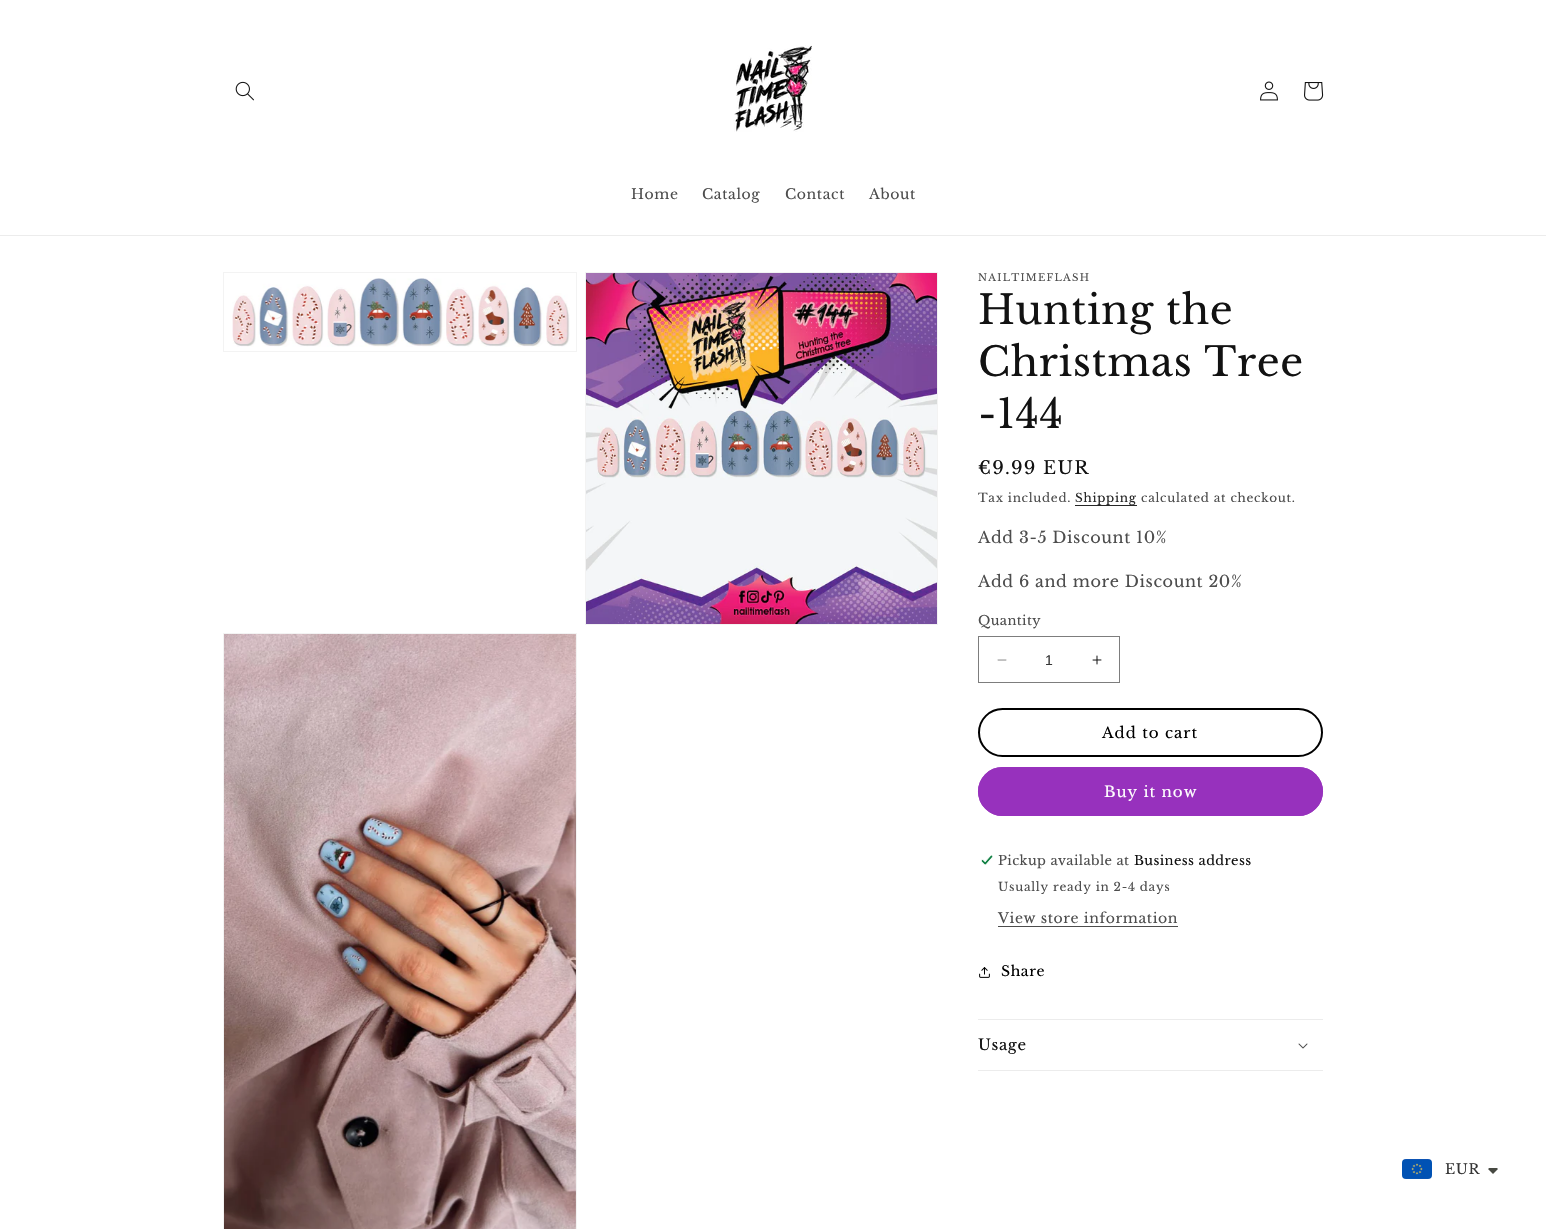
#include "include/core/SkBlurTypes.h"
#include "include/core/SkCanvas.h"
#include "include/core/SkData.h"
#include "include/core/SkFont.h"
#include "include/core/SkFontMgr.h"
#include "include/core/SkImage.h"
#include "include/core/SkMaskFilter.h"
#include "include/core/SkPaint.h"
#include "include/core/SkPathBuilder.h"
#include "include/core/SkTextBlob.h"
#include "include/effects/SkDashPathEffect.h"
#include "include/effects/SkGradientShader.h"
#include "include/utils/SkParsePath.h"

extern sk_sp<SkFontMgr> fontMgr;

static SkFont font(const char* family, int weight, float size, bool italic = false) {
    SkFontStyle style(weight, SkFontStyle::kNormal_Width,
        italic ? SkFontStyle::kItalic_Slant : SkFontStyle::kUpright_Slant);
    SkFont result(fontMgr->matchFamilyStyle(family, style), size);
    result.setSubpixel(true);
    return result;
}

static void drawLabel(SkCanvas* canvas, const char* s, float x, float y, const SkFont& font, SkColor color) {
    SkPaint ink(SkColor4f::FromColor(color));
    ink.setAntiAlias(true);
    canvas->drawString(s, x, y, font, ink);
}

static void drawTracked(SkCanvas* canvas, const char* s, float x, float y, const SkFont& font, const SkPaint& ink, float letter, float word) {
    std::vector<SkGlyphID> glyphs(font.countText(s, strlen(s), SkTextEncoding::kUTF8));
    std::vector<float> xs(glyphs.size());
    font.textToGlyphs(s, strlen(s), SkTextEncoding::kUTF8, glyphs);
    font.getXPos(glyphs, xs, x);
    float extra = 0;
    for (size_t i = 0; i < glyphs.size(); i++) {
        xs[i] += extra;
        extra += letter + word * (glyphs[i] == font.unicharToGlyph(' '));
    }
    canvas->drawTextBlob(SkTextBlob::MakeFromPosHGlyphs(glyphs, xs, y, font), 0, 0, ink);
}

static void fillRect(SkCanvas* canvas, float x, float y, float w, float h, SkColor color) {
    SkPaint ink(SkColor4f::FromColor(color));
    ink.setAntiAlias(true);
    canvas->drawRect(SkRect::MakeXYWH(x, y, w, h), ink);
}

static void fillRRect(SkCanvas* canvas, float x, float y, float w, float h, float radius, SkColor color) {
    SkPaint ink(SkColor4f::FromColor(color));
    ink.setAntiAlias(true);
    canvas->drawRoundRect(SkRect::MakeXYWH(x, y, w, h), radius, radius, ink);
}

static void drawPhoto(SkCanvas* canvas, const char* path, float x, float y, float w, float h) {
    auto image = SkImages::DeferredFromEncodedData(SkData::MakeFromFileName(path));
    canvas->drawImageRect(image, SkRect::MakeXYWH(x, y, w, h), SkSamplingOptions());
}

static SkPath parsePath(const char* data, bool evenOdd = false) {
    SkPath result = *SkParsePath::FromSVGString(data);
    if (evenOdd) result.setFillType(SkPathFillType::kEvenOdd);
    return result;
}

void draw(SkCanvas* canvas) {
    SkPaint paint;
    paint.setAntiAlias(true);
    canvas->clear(0xFFFFFFFF);
    fillRect(canvas, 0, 235, 1546, 1, 0xFFECECEC);
    drawPhoto(canvas, "assets/img1.png", 235, 81, 19, 20);
    drawPhoto(canvas, "assets/img2.png", 733, 45, 79, 87);
    drawPhoto(canvas, "assets/img3.png", 1260, 81, 18, 20);
    drawPhoto(canvas, "assets/img4.png", 1304, 82, 20, 19);
    SkFont font1 = font("Libre Baskerville", 400, 14);
    paint.setColor(0xFF4D4D4D);
    drawTracked(canvas, "Home", 631, 199, font1, paint, 0.6f, 0);
    drawTracked(canvas, "Catalog", 702, 199, font1, paint, 0.6f, 0);
    drawTracked(canvas, "Contact", 785, 199, font1, paint, 0.6f, 0);
    drawTracked(canvas, "About", 869, 199, font1, paint, 0.6f, 0);
    paint.setStroke(true);
    paint.setStrokeWidth(1);
    paint.setColor(0xFFF3F3F3);
    canvas->drawRect(SkRect::MakeXYWH(223.5f, 272.5f, 353, 79), paint);
    drawPhoto(canvas, "assets/img5.png", 232, 278, 338, 69);
    canvas->drawRect(SkRect::MakeXYWH(585.5f, 272.5f, 352, 352), paint);
    drawPhoto(canvas, "assets/img6.png", 586, 273, 351, 351);
    canvas->drawRect(SkRect::MakeXYWH(223.5f, 633.5f, 353, 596), paint);
    drawPhoto(canvas, "assets/img7.png", 224, 634, 352, 595);
    SkFont font2 = font("Libre Baskerville", 400, 10);
    paint.setStroke(false);
    paint.setColor(0xFF4D4D4D);
    drawTracked(canvas, "NAILTIMEFLASH", 978, 281, font2, paint, 1.25f, 0);
    SkFont font3 = font("Libre Baskerville", 400, 40);
    paint.setColor(0xFF121212);
    drawTracked(canvas, "Hunting the", 978, 324, font3, paint, 0.6f, 0);
    drawTracked(canvas, "Christmas Tree", 978, 376, font3, paint, 0.6f, 0);
    drawTracked(canvas, "-144", 978, 428, font3, paint, 0.6f, 0);
    SkFont font4 = font("Libre Baskerville", 400, 18);
    drawTracked(canvas, "€9.99 EUR", 978, 474, font4, paint, 1.25f, 0);
    SkFont font5 = font("Libre Baskerville", 400, 12);
    paint.setColor(0xFF4D4D4D);
    drawTracked(canvas, "Tax included.", 978, 502, font5, paint, 0.7f, 0);
    fillRect(canvas, 1075, 505, 62, 1, 0xFF262626);
    paint.setColor(0xFF262626);
    drawTracked(canvas, "Shipping", 1075, 502, font5, paint, 0.7f, 0);
    paint.setColor(0xFF4D4D4D);
    drawTracked(canvas, "calculated at checkout.", 1141, 502, font5, paint, 0.7f, 0);
    SkFont font6 = font("Libre Baskerville", 400, 16);
    drawTracked(canvas, "Add 3-5 Discount 10%", 978, 543, font6, paint, 0.6f, 0);
    drawTracked(canvas, "Add 6 and more Discount 20%", 978, 587, font6, paint, 0.6f, 0);
    SkFont font7 = font("Libre Baskerville", 400, 13);
    drawTracked(canvas, "Quantity", 978, 625, font7, paint, 0.4f, 0);
    drawPhoto(canvas, "assets/img8.png", 997, 659, 10, 2);
    drawPhoto(canvas, "assets/img9.png", 1092, 655, 10, 10);
    paint.setStroke(true);
    paint.setColor(0xFF7D7D7D);
    canvas->drawRect(SkRect::MakeXYWH(978.5f, 636.5f, 141, 46), paint);
    SkFont font8 = font("Liberation Sans", 400, 14);
    drawLabel(canvas, "1", 1045, 665, font8, 0xFF363636);
    paint.setStrokeWidth(2);
    paint.setColor(0xFF000000);
    canvas->drawRoundRect(SkRect::MakeXYWH(979, 709, 343, 47), 23.5f, 23.5f, paint);
    SkFont font9 = font("Libre Baskerville", 400, 15);
    paint.setStroke(false);
    drawTracked(canvas, "Add to cart", 1102, 738, font9, paint, 1, 0);
    fillRRect(canvas, 978, 767, 345, 49, 24.5f, 0xFF9731BD);
    paint.setStroke(true);
    paint.setColor(0xFF9731BD);
    canvas->drawRoundRect(SkRect::MakeXYWH(979, 768, 343, 47), 23.5f, 23.5f, paint);
    paint.setStroke(false);
    paint.setColor(0xFFFFFFFF);
    drawTracked(canvas, "Buy it now", 1104, 797, font9, paint, 1, 0);
    drawPhoto(canvas, "assets/img10.png", 981, 855, 12, 10);
    paint.setColor(0xFF4D4D4D);
    drawTracked(canvas, "Pickup available at", 998, 865, font7, paint, 0.4f, 0);
    paint.setColor(0xFF121212);
    drawTracked(canvas, "Business address", 1134, 865, font7, paint, 0.4f, 0);
    paint.setColor(0xFF4D4D4D);
    drawTracked(canvas, "Usually ready in 2-4 days", 998, 891, font5, paint, 0.7f, 0);
    drawTracked(canvas, "View store information", 998, 923, font1, paint, 0.6f, 0);
    fillRect(canvas, 998, 926, 180, 1, 0xFF4D4D4D);
    drawPhoto(canvas, "assets/img11.png", 979, 967, 11, 11);
    paint.setColor(0xFF000000);
    drawTracked(canvas, "Share", 1001, 976, font1, paint, 0.6f, 0);
    fillRect(canvas, 978, 1019, 345, 1, 0xFFECECEC);
    fillRect(canvas, 978, 1070, 345, 1, 0xFFECECEC);
    paint.setColor(0xFF121212);
    drawTracked(canvas, "Usage", 978, 1050, font9, paint, 0.6f, 0);
    drawPhoto(canvas, "assets/img12.png", 1298, 1043, 10, 6);
    drawPhoto(canvas, "assets/img13.png", 1402, 1159, 30, 20);
    paint.setColor(0xFF363636);
    drawTracked(canvas, "EUR", 1445, 1174, font1, paint, 0.6f, 0);
    paint.setColor(0xFF474942);
    canvas->drawPath(parsePath("M1490 1168C1489 1168 1488.5 1168.5 1488 1169L1493 1174L1498 1169L1497 1168Z"), paint);
}
